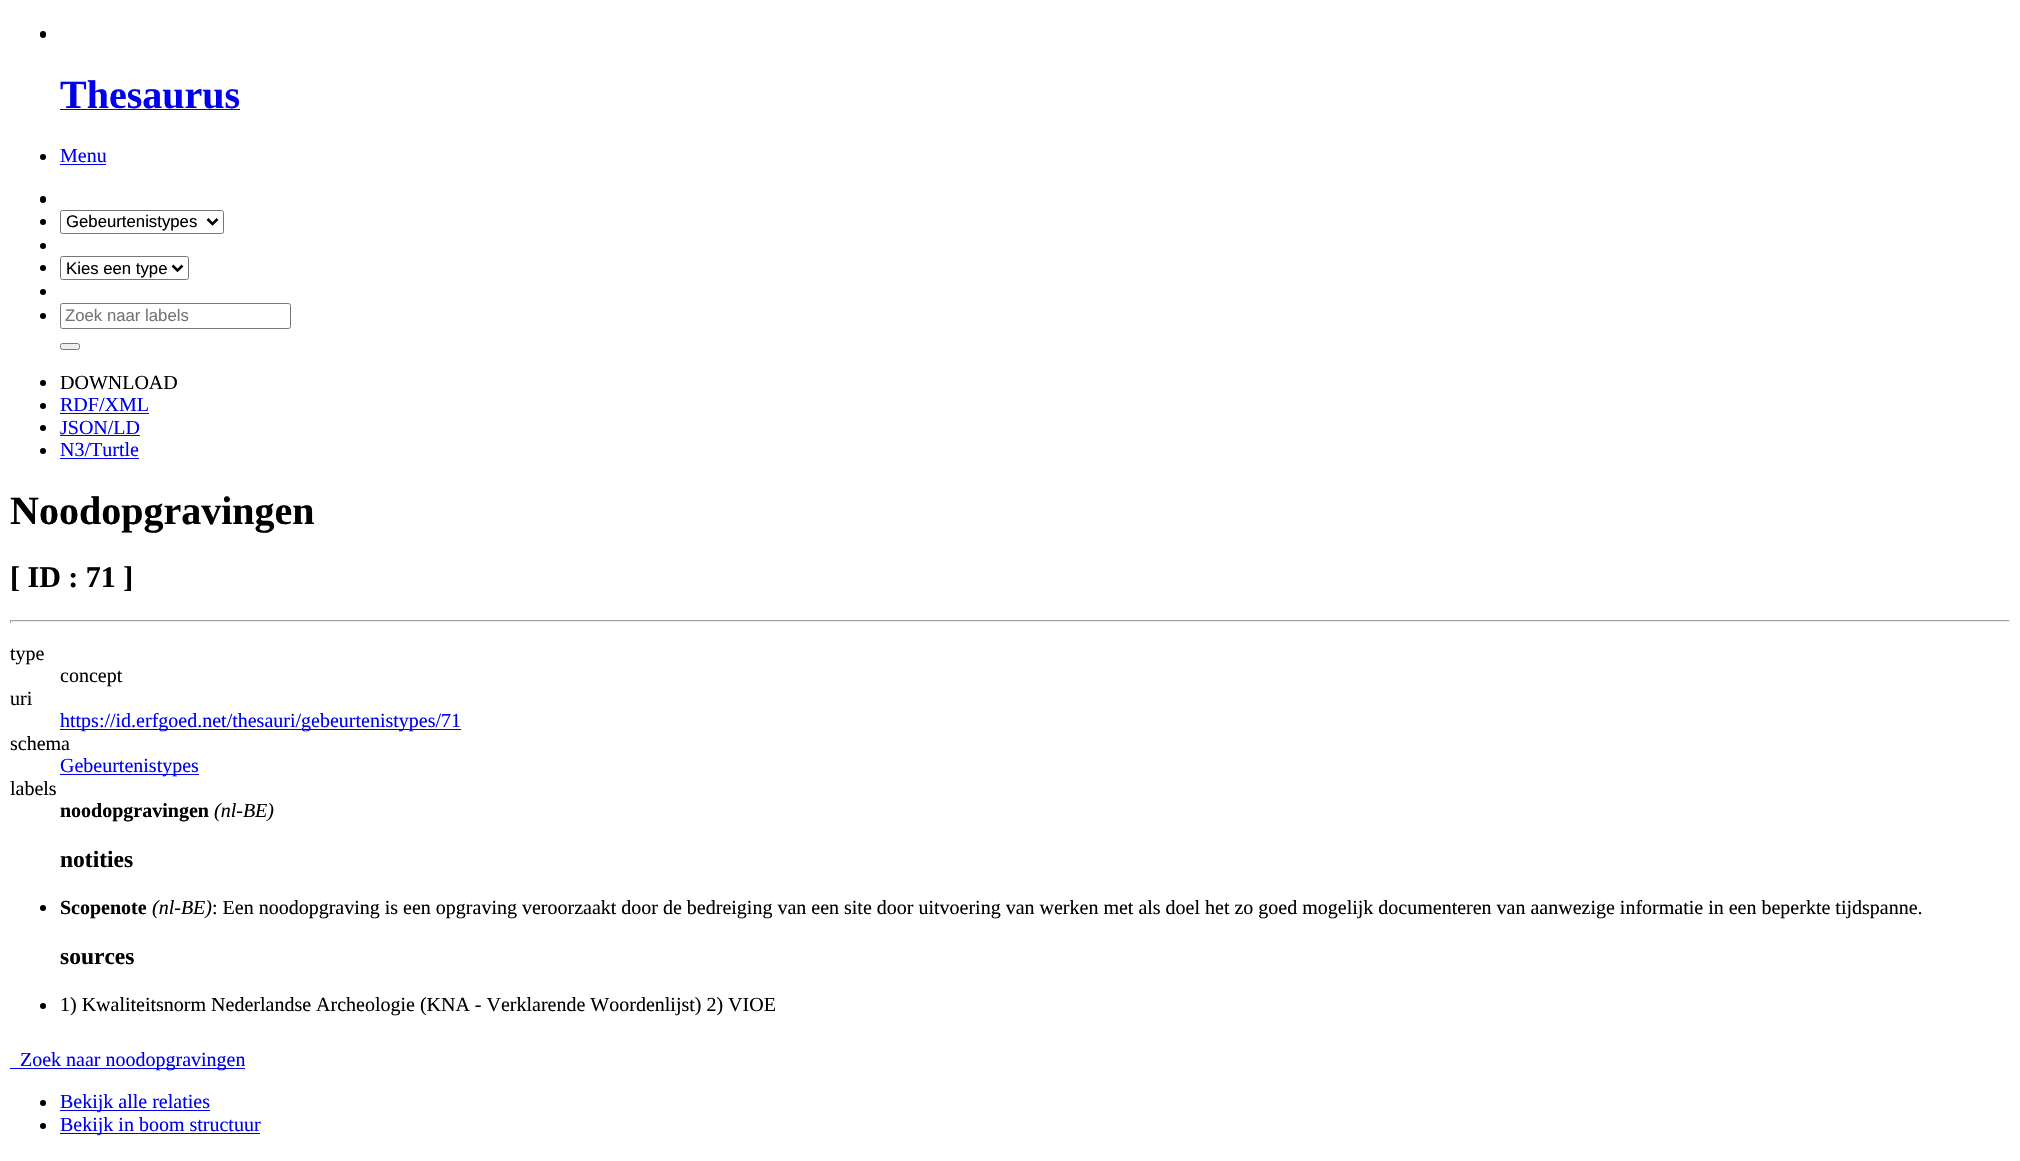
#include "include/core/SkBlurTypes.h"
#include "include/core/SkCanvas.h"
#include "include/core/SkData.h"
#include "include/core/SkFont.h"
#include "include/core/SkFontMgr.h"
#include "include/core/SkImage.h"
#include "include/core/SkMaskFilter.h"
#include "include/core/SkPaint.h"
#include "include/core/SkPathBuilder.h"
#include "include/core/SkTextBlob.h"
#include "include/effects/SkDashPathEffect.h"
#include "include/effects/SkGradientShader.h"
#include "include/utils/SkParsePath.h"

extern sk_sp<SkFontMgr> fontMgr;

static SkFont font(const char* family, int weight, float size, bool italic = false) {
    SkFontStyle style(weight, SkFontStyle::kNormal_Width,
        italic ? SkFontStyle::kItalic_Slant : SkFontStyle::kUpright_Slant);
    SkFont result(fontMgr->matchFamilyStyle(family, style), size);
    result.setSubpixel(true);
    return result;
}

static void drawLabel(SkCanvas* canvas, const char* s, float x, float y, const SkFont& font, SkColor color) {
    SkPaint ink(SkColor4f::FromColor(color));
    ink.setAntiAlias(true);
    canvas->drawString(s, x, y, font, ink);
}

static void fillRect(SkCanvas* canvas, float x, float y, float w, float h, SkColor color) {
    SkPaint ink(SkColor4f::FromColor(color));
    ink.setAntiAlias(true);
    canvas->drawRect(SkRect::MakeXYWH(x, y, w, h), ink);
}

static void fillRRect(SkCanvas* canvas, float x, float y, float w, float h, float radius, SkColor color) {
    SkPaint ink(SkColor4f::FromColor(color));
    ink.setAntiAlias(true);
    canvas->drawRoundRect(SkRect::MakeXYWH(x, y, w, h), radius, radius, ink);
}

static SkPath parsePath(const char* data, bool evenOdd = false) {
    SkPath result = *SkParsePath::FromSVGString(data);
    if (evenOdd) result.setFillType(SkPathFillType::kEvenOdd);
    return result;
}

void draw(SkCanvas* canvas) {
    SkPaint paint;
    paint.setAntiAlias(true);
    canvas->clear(0xFFFFFFFF);
    fillRRect(canvas, 40, 31, 6, 7, 3, 0xFF000000);
    SkFont font1 = font("Liberation Serif", 700, 40);
    drawLabel(canvas, "Thesaurus", 60, 108, font1, 0xFF0000EE);
    fillRect(canvas, 60, 109, 180, 1, 0xFF0000EE);
    paint.setColor(0xFF000000);
    canvas->drawCircle(43, 157, 3, paint);
    SkFont font2 = font("Liberation Serif", 400, 20);
    drawLabel(canvas, "Menu", 60, 162, font2, 0xFF0000EE);
    fillRect(canvas, 60, 164, 46, 1, 0xFF0000EE);
    fillRRect(canvas, 40, 196, 6, 7, 3, 0xFF000000);
    canvas->drawCircle(43, 222, 3, paint);
    paint.setStroke(true);
    paint.setStrokeWidth(1);
    paint.setColor(0xFF767676);
    canvas->drawRoundRect(SkRect::MakeXYWH(60.5f, 210.5f, 163, 23), 2, 2, paint);
    paint.setStrokeWidth(2.5f);
    paint.setColor(0xFF000000);
    canvas->drawPath(parsePath("M207.5 219L212.5 224L217.5 219"), paint);
    SkFont font3 = font("Liberation Sans", 400, 16.75f);
    drawLabel(canvas, "Gebeurtenistypes", 66, 227, font3, 0xFF000000);
    paint.setStroke(false);
    canvas->drawCircle(43, 246, 3, paint);
    canvas->drawCircle(43, 268, 3, paint);
    paint.setStroke(true);
    paint.setStrokeWidth(1);
    paint.setColor(0xFF767676);
    canvas->drawRoundRect(SkRect::MakeXYWH(60.5f, 256.5f, 128, 23), 2, 2, paint);
    paint.setStrokeWidth(2.5f);
    paint.setColor(0xFF000000);
    canvas->drawPath(parsePath("M172.5 265.5L177.5 270.5L182.5 265.5"), paint);
    drawLabel(canvas, "Kies een type", 66, 274, font3, 0xFF000000);
    paint.setStroke(false);
    canvas->drawCircle(43, 292, 3, paint);
    canvas->drawCircle(43, 316, 3, paint);
    paint.setStroke(true);
    paint.setStrokeWidth(1);
    paint.setColor(0xFF767676);
    canvas->drawRoundRect(SkRect::MakeXYWH(60.5f, 303.5f, 230, 25), 2, 2, paint);
    drawLabel(canvas, "Zoek naar labels", 65, 321, font3, 0xFF757575);
    paint.setStroke(false);
    paint.setColor(0xFFEFEFEF);
    canvas->drawRoundRect(SkRect::MakeXYWH(60.5f, 343.5f, 19, 6), 2, 2, paint);
    paint.setStroke(true);
    paint.setColor(0xFF767676);
    canvas->drawRoundRect(SkRect::MakeXYWH(60.5f, 343.5f, 19, 6), 2, 2, paint);
    paint.setStroke(false);
    paint.setColor(0xFF000000);
    canvas->drawCircle(43, 383, 3, paint);
    drawLabel(canvas, "DOWNLOAD", 60, 389, font2, 0xFF000000);
    canvas->drawCircle(43, 406, 3, paint);
    drawLabel(canvas, "RDF/XML", 60, 411, font2, 0xFF0000EE);
    fillRect(canvas, 60, 413, 89, 1, 0xFF0000EE);
    canvas->drawCircle(43, 428, 3, paint);
    drawLabel(canvas, "JSON/LD", 60, 434, font2, 0xFF0000EE);
    fillRect(canvas, 60, 435, 80, 1, 0xFF0000EE);
    canvas->drawCircle(43, 451, 3, paint);
    drawLabel(canvas, "N3/Turtle", 60, 456, font2, 0xFF0000EE);
    fillRect(canvas, 60, 458, 79, 1, 0xFF0000EE);
    drawLabel(canvas, "Noodopgravingen", 10, 524, font1, 0xFF000000);
    SkFont font4 = font("Liberation Serif", 700, 30);
    drawLabel(canvas, "[ ID : 71 ]", 10, 587, font4, 0xFF000000);
    fillRect(canvas, 10, 620, 2000, 1, 0xFF9F9F9F);
    fillRect(canvas, 2009, 620, 1, 3, 0xFFEEEEEE);
    fillRect(canvas, 10, 621, 2000, 1, 0xFFEEEEEE);
    fillRect(canvas, 10, 620, 1, 3, 0xFF9F9F9F);
    drawLabel(canvas, "type", 10, 660, font2, 0xFF000000);
    drawLabel(canvas, "concept", 60, 682, font2, 0xFF000000);
    drawLabel(canvas, "uri", 10, 705, font2, 0xFF000000);
    fillRect(canvas, 60, 729, 401, 1, 0xFF0000EE);
    drawLabel(canvas, "https://id.erfgoed.net/thesauri/gebeurtenistypes/71", 60, 727, font2, 0xFF0000EE);
    drawLabel(canvas, "schema", 10, 750, font2, 0xFF000000);
    fillRect(canvas, 60, 774, 139, 1, 0xFF0000EE);
    drawLabel(canvas, "Gebeurtenistypes", 60, 772, font2, 0xFF0000EE);
    drawLabel(canvas, "labels", 10, 795, font2, 0xFF000000);
    SkFont font5 = font("Liberation Serif", 700, 20);
    drawLabel(canvas, "noodopgravingen", 60, 817, font5, 0xFF000000);
    SkFont font6 = font("Liberation Serif", 400, 20, true);
    drawLabel(canvas, "(nl-BE)", 214, 817, font6, 0xFF000000);
    SkFont font7 = font("Liberation Serif", 700, 23.5f);
    drawLabel(canvas, "notities", 60, 867, font7, 0xFF000000);
    canvas->drawCircle(43, 908, 3, paint);
    drawLabel(canvas, "Scopenote", 60, 914, font5, 0xFF000000);
    drawLabel(canvas, "(nl-BE)", 152, 914, font6, 0xFF000000);
    drawLabel(canvas, ": Een noodopgraving is een opgraving veroorzaakt door de bedreiging van een site door uitvoering van werken met als doel het zo goed mogelijk documenteren van aanwezige informatie in een beperkte tijdspanne.", 212, 914, font2, 0xFF000000);
    drawLabel(canvas, "sources", 60, 964, font7, 0xFF000000);
    canvas->drawCircle(43, 1006, 3, paint);
    drawLabel(canvas, "1) Kwaliteitsnorm Nederlandse Archeologie (KNA - Verklarende Woordenlijst) 2) VIOE", 60, 1011, font2, 0xFF000000);
    fillRect(canvas, 10, 1068, 235, 1, 0xFF0000EE);
    drawLabel(canvas, "Zoek naar noodopgravingen", 20, 1066, font2, 0xFF0000EE);
    canvas->drawCircle(43, 1103, 3, paint);
    fillRect(canvas, 60, 1110, 150, 1, 0xFF0000EE);
    drawLabel(canvas, "Bekijk alle relaties", 60, 1108, font2, 0xFF0000EE);
    canvas->drawCircle(43, 1126, 3, paint);
    fillRect(canvas, 60, 1133, 200, 1, 0xFF0000EE);
    drawLabel(canvas, "Bekijk in boom structuur", 60, 1131, font2, 0xFF0000EE);
}
